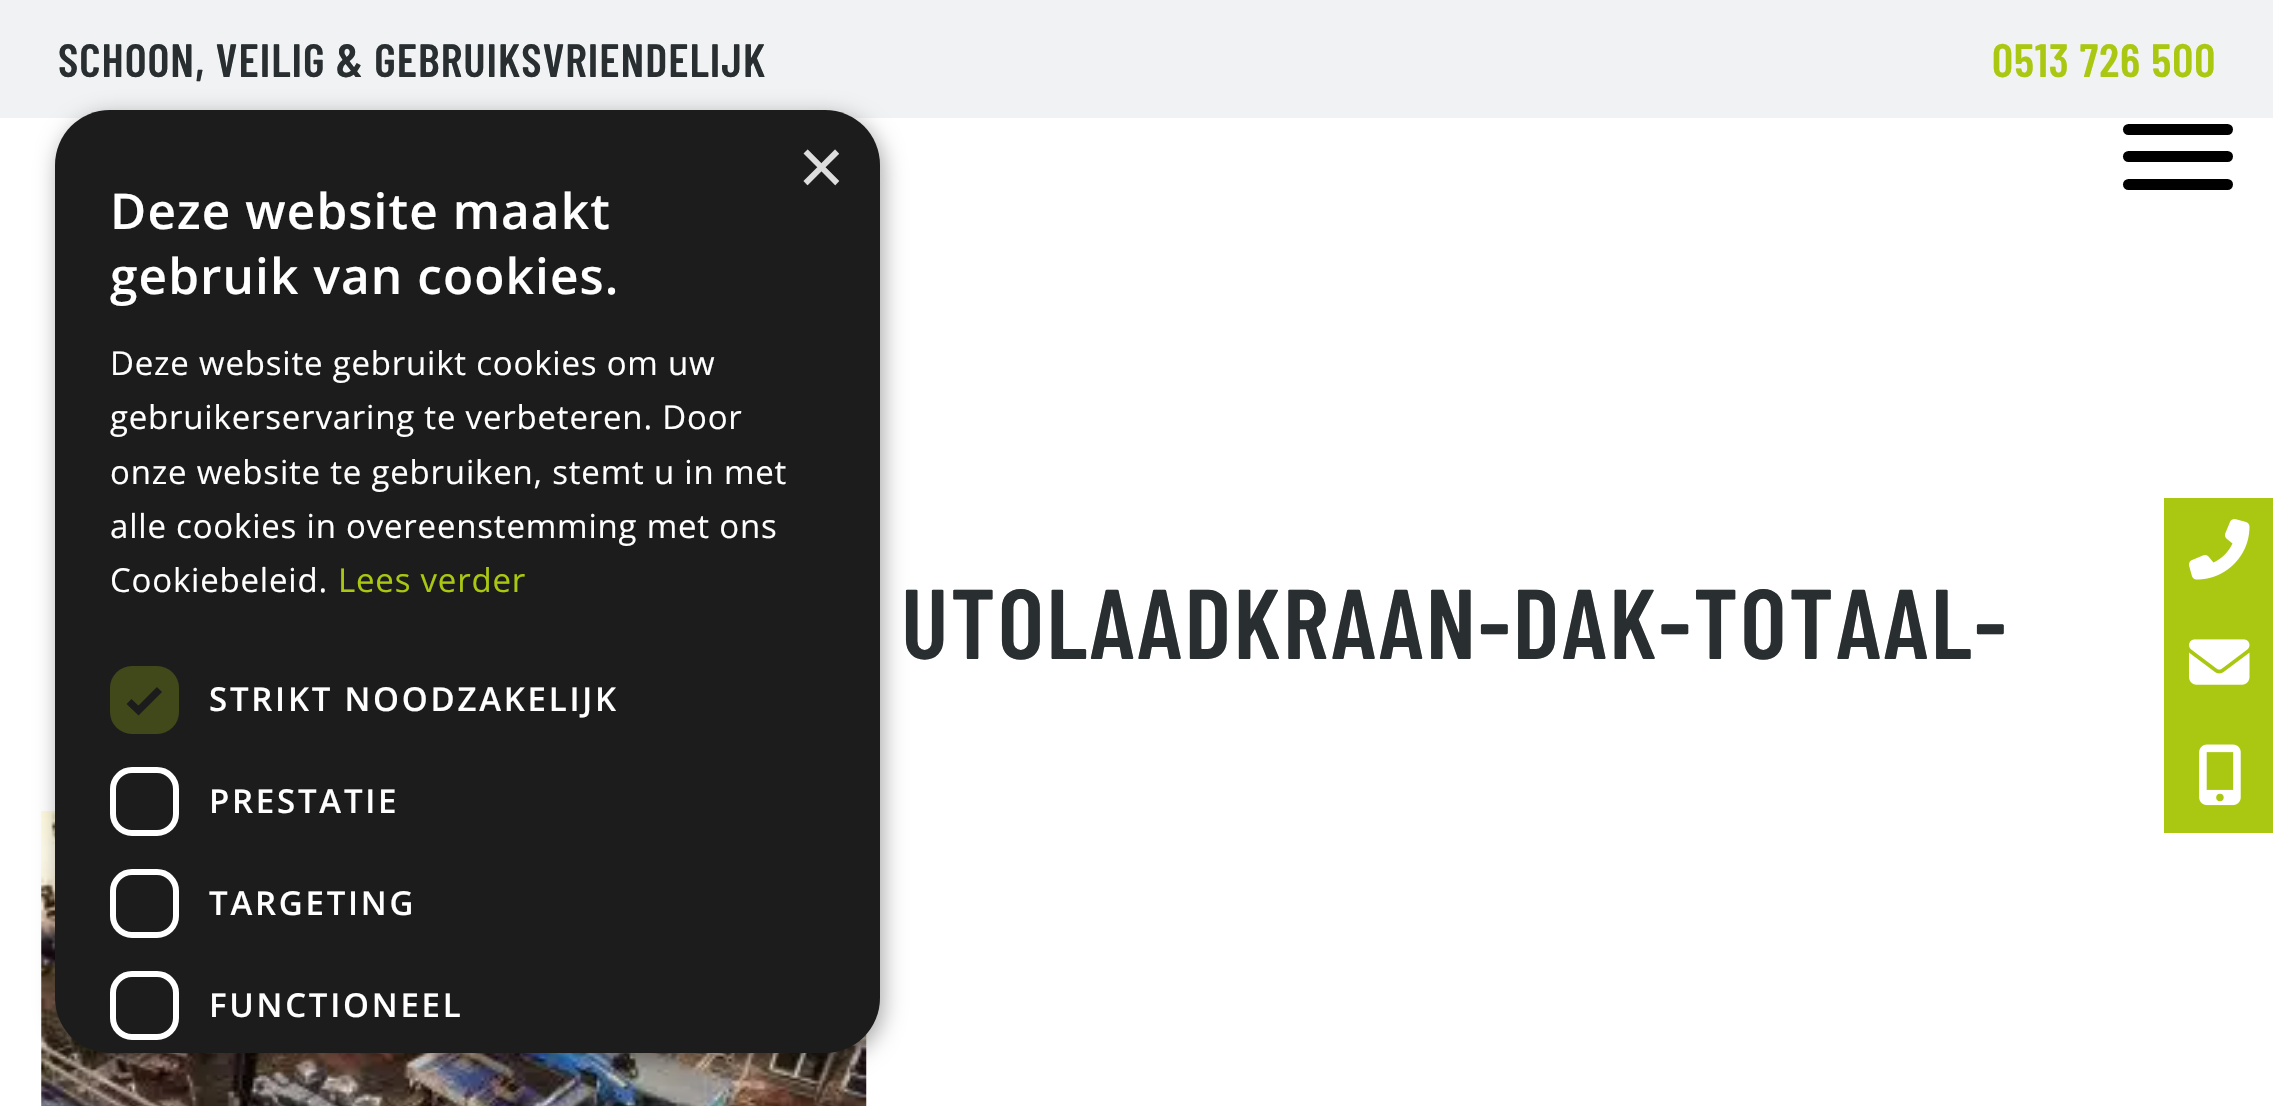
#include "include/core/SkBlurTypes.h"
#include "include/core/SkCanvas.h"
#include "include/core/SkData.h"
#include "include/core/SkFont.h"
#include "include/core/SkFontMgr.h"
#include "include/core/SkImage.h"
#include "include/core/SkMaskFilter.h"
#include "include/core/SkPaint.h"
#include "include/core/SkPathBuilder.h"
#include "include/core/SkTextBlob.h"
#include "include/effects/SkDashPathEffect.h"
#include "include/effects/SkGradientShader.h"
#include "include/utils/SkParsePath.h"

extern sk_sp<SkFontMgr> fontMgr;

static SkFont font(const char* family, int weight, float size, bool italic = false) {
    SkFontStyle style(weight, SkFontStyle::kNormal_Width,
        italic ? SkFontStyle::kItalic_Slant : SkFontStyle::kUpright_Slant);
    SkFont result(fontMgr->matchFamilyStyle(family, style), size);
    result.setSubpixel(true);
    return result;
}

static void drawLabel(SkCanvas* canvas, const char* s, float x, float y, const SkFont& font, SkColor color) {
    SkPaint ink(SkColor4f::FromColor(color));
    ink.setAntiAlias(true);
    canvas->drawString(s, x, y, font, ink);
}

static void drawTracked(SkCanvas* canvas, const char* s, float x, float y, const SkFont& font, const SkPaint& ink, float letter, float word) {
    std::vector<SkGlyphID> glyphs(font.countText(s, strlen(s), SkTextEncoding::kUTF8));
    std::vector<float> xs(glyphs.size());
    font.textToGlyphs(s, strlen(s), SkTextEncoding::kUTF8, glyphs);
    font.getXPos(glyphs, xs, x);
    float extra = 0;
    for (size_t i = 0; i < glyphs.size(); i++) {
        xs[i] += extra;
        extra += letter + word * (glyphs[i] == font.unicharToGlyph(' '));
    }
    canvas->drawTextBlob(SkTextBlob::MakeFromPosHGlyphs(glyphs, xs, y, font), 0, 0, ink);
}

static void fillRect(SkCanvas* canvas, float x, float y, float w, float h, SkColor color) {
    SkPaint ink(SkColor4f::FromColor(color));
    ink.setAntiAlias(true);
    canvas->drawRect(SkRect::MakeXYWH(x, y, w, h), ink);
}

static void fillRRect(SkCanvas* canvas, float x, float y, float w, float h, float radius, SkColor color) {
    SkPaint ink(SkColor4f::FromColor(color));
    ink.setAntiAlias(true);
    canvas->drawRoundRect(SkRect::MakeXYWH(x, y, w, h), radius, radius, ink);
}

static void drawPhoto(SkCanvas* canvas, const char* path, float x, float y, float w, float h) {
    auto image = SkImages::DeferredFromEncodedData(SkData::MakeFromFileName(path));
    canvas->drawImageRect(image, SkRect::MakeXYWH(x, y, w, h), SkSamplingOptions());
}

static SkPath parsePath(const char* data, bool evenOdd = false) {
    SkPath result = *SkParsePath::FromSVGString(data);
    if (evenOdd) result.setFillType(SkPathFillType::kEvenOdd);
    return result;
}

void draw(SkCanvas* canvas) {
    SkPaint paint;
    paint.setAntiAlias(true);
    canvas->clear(0xFFFFFFFF);
    fillRect(canvas, 0, 0, 2273, 118, 0xFFF0F2F3);
    SkFont font1 = font("Barlow Condensed", 600, 46.75f);
    paint.setColor(0xFF292F31);
    drawTracked(canvas, "SCHOON, VEILIG & GEBRUIKSVRIENDELIJK", 58, 77, font1, paint, 0.95f, 0);
    paint.setColor(0xFFAAC711);
    drawTracked(canvas, "0513 726 500", 1992, 77, font1, paint, 0.95f, 0);
    drawPhoto(canvas, "assets/img1.png", 41, 811, 826, 295);
    paint.setColor(0x59000000);
    paint.setMaskFilter(SkMaskFilter::MakeBlur(kNormal_SkBlurStyle, 11));
    canvas->drawRoundRect(SkRect::MakeXYWH(58, 116, 825, 943), 55, 55, paint);
    paint.setMaskFilter(nullptr);
    fillRRect(canvas, 55, 110, 825, 943, 55, 0xFF1C1C1C);
    SkFont font2 = font("Liberation Sans", 400, 80);
    drawLabel(canvas, "×", 798, 194, font2, 0xFFDDDDDD);
    SkFont font3 = font("Open Sans", 600, 49.5f);
    paint.setColor(0xFFFFFFFF);
    drawTracked(canvas, "Deze website maakt", 110, 229, font3, paint, 1.1f, 0);
    drawTracked(canvas, "gebruik van cookies.", 110, 294, font3, paint, 1.1f, 0);
    SkFont font4 = font("Open Sans", 400, 33);
    drawTracked(canvas, "Deze website gebruikt cookies om uw", 110, 375, font4, paint, 0.8f, 0);
    drawTracked(canvas, "gebruikerservaring te verbeteren. Door", 110, 429, font4, paint, 0.8f, 0);
    drawTracked(canvas, "onze website te gebruiken, stemt u in met", 110, 484, font4, paint, 0.8f, 0);
    drawTracked(canvas, "alle cookies in overeenstemming met ons", 110, 538, font4, paint, 0.8f, 0);
    drawTracked(canvas, "Cookiebeleid.", 110, 592, font4, paint, 0.8f, 0);
    paint.setColor(0xFFAAC711);
    drawTracked(canvas, "Lees verder", 338, 592, font4, paint, 0.8f, 0);
    fillRRect(canvas, 110, 666, 69, 68, 22, 0xFF414819);
    paint.setStroke(true);
    paint.setStrokeWidth(7.2f);
    paint.setColor(0xFF1C1C1C);
    canvas->drawPath(parsePath("M129 701.5L138.5 710.5L159.5 689.5"), paint);
    SkFont font5 = font("Open Sans", 600, 33);
    paint.setStroke(false);
    paint.setColor(0xFFFFFFFF);
    drawTracked(canvas, "STRIKT NOODZAKELIJK", 209, 711, font5, paint, 2.75f, 0);
    paint.setStroke(true);
    paint.setStrokeWidth(6);
    canvas->drawRoundRect(SkRect::MakeXYWH(113, 770, 63, 63), 19, 19, paint);
    paint.setStroke(false);
    drawTracked(canvas, "PRESTATIE", 209, 813, font5, paint, 2.75f, 0);
    paint.setStroke(true);
    canvas->drawRoundRect(SkRect::MakeXYWH(113, 872, 63, 63), 19, 19, paint);
    paint.setStroke(false);
    drawTracked(canvas, "TARGETING", 209, 915, font5, paint, 2.75f, 0);
    paint.setStroke(true);
    canvas->drawRoundRect(SkRect::MakeXYWH(113, 974, 63, 63), 19, 19, paint);
    paint.setStroke(false);
    drawTracked(canvas, "FUNCTIONEEL", 209, 1017, font5, paint, 2.75f, 0);
    fillRRect(canvas, 2123, 151, 110, 11, 5.5f, 0xFF000000);
    fillRRect(canvas, 2123, 124, 110, 11, 5.5f, 0xFF000000);
    fillRRect(canvas, 2123, 179, 110, 11, 5.5f, 0xFF000000);
    SkFont font6 = font("Barlow Condensed", 600, 99);
    paint.setColor(0xFF292F31);
    drawTracked(canvas, "UTOLAADKRAAN-DAK-TOTAAL-", 901, 659, font6, paint, 2.3f, 0);
    fillRect(canvas, 2164, 498, 109, 335, 0xFFAAC711);
    drawPhoto(canvas, "assets/img2.png", 2189, 519, 61, 61);
    drawPhoto(canvas, "assets/img3.png", 2189, 639, 61, 46);
    drawPhoto(canvas, "assets/img4.png", 2199, 744, 42, 62);
}
